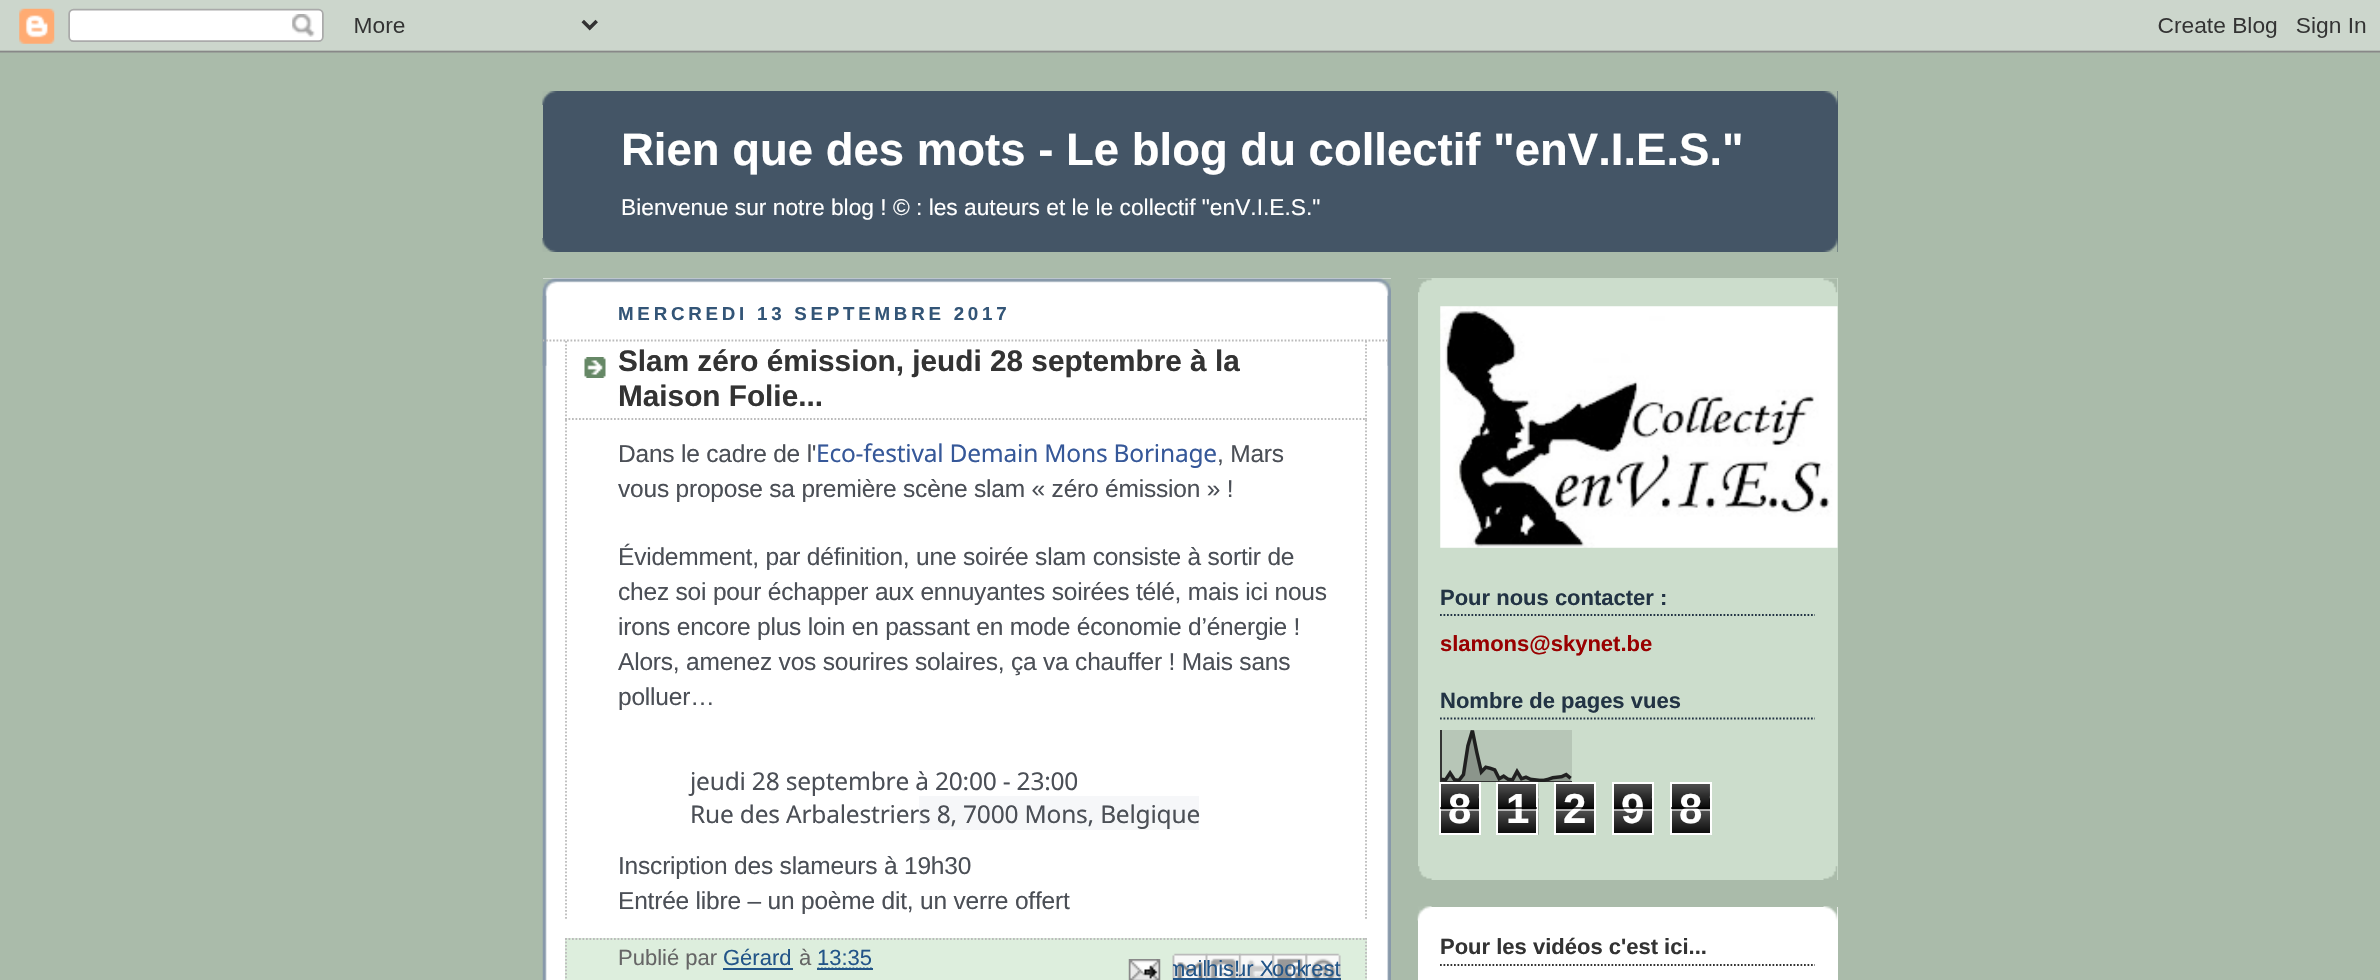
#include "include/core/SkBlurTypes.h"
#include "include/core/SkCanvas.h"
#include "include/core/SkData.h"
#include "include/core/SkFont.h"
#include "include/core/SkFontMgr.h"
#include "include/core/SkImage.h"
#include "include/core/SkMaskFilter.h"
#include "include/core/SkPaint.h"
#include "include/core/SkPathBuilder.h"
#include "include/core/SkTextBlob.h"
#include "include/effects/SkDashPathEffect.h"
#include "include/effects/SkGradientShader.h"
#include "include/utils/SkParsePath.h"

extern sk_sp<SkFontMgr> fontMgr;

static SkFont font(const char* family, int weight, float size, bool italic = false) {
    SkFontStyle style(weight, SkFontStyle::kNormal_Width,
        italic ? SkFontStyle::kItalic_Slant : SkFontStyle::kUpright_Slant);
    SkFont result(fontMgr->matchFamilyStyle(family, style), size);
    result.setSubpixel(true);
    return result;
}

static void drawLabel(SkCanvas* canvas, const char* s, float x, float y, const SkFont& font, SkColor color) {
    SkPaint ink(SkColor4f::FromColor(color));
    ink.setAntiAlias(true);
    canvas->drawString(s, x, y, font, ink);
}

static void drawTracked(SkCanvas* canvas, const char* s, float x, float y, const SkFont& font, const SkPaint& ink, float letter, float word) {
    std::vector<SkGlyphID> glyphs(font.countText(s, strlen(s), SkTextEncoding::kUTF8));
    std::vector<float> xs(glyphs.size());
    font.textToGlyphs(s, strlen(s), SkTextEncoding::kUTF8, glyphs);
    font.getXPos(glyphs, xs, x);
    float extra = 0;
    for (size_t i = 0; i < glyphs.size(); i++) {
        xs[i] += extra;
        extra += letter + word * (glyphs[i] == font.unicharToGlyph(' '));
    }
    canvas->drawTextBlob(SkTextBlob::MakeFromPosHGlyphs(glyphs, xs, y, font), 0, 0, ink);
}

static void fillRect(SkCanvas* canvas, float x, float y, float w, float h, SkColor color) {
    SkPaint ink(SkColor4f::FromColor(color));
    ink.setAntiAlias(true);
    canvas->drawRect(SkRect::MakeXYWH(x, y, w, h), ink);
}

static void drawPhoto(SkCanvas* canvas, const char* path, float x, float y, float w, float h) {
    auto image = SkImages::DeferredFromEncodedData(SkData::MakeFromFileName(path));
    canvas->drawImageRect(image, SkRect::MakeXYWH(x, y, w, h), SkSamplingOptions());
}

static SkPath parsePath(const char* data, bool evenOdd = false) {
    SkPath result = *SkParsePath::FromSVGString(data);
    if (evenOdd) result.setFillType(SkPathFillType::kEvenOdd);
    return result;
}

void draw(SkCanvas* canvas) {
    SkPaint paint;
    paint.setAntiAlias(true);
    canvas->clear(0xFFAABBAA);
    drawPhoto(canvas, "assets/img1.png", 0, 0, 2380, 53);
    fillRect(canvas, 543, 91, 1295, 161, 0xFF445566);
    drawPhoto(canvas, "assets/img2.png", 542, 91, 1296, 14);
    drawPhoto(canvas, "assets/img3.png", 542, 238, 1296, 14);
    SkFont font1 = font("Liberation Sans", 700, 45.5f);
    drawLabel(canvas, "Rien que des mots - Le blog du collectif \"enV.I.E.S.\"", 621, 165, font1, 0xFFFFFFFF);
    SkFont font2 = font("Liberation Sans", 400, 22.75f);
    drawLabel(canvas, "Bienvenue sur notre blog ! © : les auteurs et le le collectif \"enV.I.E.S.\"", 621, 215, font2, 0xFFFFFFFF);
    fillRect(canvas, 543, 278, 848, 702, 0xFFFFFFFF);
    drawPhoto(canvas, "assets/img4.png", 542, 278, 849, 88);
    drawPhoto(canvas, "assets/img5.png", 542, 295, 849, 685);
    SkFont font3 = font("Liberation Sans", 700, 18.75f);
    paint.setColor(0xFF335577);
    drawTracked(canvas, "MERCREDI 13 SEPTEMBRE 2017", 618, 320, font3, paint, 3.75f, 0);
    canvas->save();
    canvas->clipRect(SkRect::MakeXYWH(543, 278, 848, 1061));
    paint.setStroke(true);
    paint.setStrokeWidth(1.8f);
    paint.setColor(0xFFBBBBBB);
    paint.setPathEffect(SkDashPathEffect::Make({{1.75f, 1.75f}}, 0));
    canvas->drawPath(parsePath("M542.5 340.5H1389.5"), paint);
    paint.setPathEffect(nullptr);
    canvas->restore();
    drawPhoto(canvas, "assets/img6.png", 584, 357, 22, 21);
    paint.setPathEffect(SkDashPathEffect::Make({{1.75f, 1.75f}}, 0));
    canvas->drawPath(parsePath("M1366 341V420"), paint);
    paint.setPathEffect(nullptr);
    paint.setPathEffect(SkDashPathEffect::Make({{1.75f, 1.75f}}, 0));
    canvas->drawPath(parsePath("M565 419H1367"), paint);
    paint.setPathEffect(nullptr);
    paint.setPathEffect(SkDashPathEffect::Make({{1.75f, 1.75f}}, 0));
    canvas->drawPath(parsePath("M566 341V420"), paint);
    paint.setPathEffect(nullptr);
    SkFont font4 = font("Liberation Sans", 700, 29.75f);
    drawLabel(canvas, "Slam zéro émission, jeudi 28 septembre à la", 618, 371, font4, 0xFF333333);
    drawLabel(canvas, "Maison Folie...", 618, 406, font4, 0xFF333333);
    paint.setPathEffect(SkDashPathEffect::Make({{1.75f, 1.75f}}, 0));
    canvas->drawPath(parsePath("M1366 420V920.5"), paint);
    paint.setPathEffect(nullptr);
    paint.setPathEffect(SkDashPathEffect::Make({{1.75f, 1.75f}}, 0));
    canvas->drawPath(parsePath("M566 420V920.5"), paint);
    paint.setPathEffect(nullptr);
    SkFont font5 = font("Liberation Sans", 400, 24.5f);
    paint.setStroke(false);
    paint.setColor(0xFF4B4F56);
    drawTracked(canvas, "Dans le cadre de l'", 618, 462, font5, paint, -0.2f, 0);
    SkFont font6 = font("Noto Sans", 400, 24.5f);
    paint.setColor(0xFF365899);
    drawTracked(canvas, "Eco-festival Demain Mons Borinage", 816, 462, font6, paint, -0.2f, 0);
    paint.setColor(0xFF4B4F56);
    drawTracked(canvas, ", Mars", 1217, 462, font5, paint, -0.2f, 0);
    drawTracked(canvas, "vous propose sa première scène slam « zéro émission » !", 618, 497, font5, paint, -0.2f, 0);
    drawTracked(canvas, "Évidemment, par définition, une soirée slam consiste à sortir de", 618, 565, font5, paint, -0.2f, 0);
    drawTracked(canvas, "chez soi pour échapper aux ennuyantes soirées télé, mais ici nous", 618, 600, font5, paint, -0.2f, 0);
    drawTracked(canvas, "irons encore plus loin en passant en mode économie d’énergie !", 618, 635, font5, paint, -0.2f, 0);
    drawTracked(canvas, "Alors, amenez vos sourires solaires, ça va chauffer ! Mais sans", 618, 670, font5, paint, -0.2f, 0);
    drawTracked(canvas, "polluer…", 618, 705, font5, paint, -0.2f, 0);
    drawTracked(canvas, "jeudi 28 septembre à 20:00 - 23:00", 690, 790, font6, paint, -0.2f, 0);
    drawTracked(canvas, "Rue des Arbalestrier", 690, 823, font6, paint, -0.2f, 0);
    fillRect(canvas, 919, 796, 280, 34, 0xFFF6F7F9);
    drawTracked(canvas, "s 8, 7000 Mons, Belgique", 919, 823, font6, paint, -0.2f, 0);
    drawTracked(canvas, "Inscription des slameurs à 19h30", 618, 874, font5, paint, -0.2f, 0);
    drawTracked(canvas, "Entrée libre – un poème dit, un verre offert", 618, 909, font5, paint, -0.2f, 0);
    fillRect(canvas, 565, 938, 802, 42, 0xFFDDEEDD);
    paint.setStroke(true);
    paint.setColor(0xFFBBBBBB);
    paint.setPathEffect(SkDashPathEffect::Make({{1.75f, 1.75f}}, 0));
    canvas->drawPath(parsePath("M565 939H1367"), paint);
    paint.setPathEffect(nullptr);
    paint.setPathEffect(SkDashPathEffect::Make({{1.75f, 1.75f}}, 0));
    canvas->drawPath(parsePath("M1366 938V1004.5"), paint);
    paint.setPathEffect(nullptr);
    paint.setPathEffect(SkDashPathEffect::Make({{1.75f, 1.75f}}, 0));
    canvas->drawPath(parsePath("M566 938V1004.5"), paint);
    paint.setPathEffect(nullptr);
    SkFont font7 = font("Liberation Sans", 400, 22);
    drawLabel(canvas, "Publié par", 618, 965, font7, 0xFF666666);
    drawLabel(canvas, "Gérard", 723, 965, font7, 0xFF225588);
    fillRect(canvas, 723, 968, 70, 2, 0xFF225588);
    drawLabel(canvas, "à", 799, 965, font7, 0xFF666666);
    drawLabel(canvas, "13:35", 817, 965, font7, 0xFF225588);
    paint.setColor(0xFF225588);
    paint.setPathEffect(SkDashPathEffect::Make({{1.75f, 1.75f}}, 0));
    canvas->drawPath(parsePath("M817.5 968.5H872.5"), paint);
    paint.setPathEffect(nullptr);
    fillRect(canvas, 817, 968, 56, 2, 0xFF225588);
    drawPhoto(canvas, "assets/img7.png", 1128, 959, 33, 21);
    drawPhoto(canvas, "assets/img8.png", 1172, 953, 36, 27);
    canvas->save();
    canvas->clipRect(SkRect::MakeXYWH(1173, 954, 35, 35));
    drawLabel(canvas, "mail", 1167, 976, font7, 0xFF225588);
    canvas->restore();
    fillRect(canvas, 1173, 978, 35, 2, 0xFF225588);
    drawPhoto(canvas, "assets/img9.png", 1205, 953, 36, 27);
    drawLabel(canvas, "his!", 1206, 976, font7, 0xFF225588);
    fillRect(canvas, 1206, 978, 101, 2, 0xFF225588);
    drawPhoto(canvas, "assets/img10.png", 1239, 953, 35, 25);
    canvas->save();
    canvas->clipRect(SkRect::MakeXYWH(1239, 954, 35, 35));
    drawLabel(canvas, "ur X", 1234, 976, font7, 0xFF225588);
    canvas->restore();
    drawPhoto(canvas, "assets/img11.png", 1272, 953, 36, 25);
    drawLabel(canvas, "ook", 1272, 976, font7, 0xFF225588);
    drawPhoto(canvas, "assets/img12.png", 1305, 953, 36, 27);
    canvas->save();
    canvas->clipRect(SkRect::MakeXYWH(1306, 954, 35, 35));
    drawLabel(canvas, "rest", 1304, 976, font7, 0xFF225588);
    canvas->restore();
    fillRect(canvas, 1306, 978, 35, 2, 0xFF225588);
    fillRect(canvas, 1418, 278, 420, 602, 0xFFCCDDCC);
    drawPhoto(canvas, "assets/img13.png", 1418, 866, 420, 14);
    drawPhoto(canvas, "assets/img14.png", 1418, 278, 420, 15);
    drawPhoto(canvas, "assets/img15.png", 1440, 306, 398, 242);
    paint.setColor(0xFF223344);
    paint.setPathEffect(SkDashPathEffect::Make({{1.75f, 1.75f}}, 0));
    canvas->drawPath(parsePath("M1440 615H1815"), paint);
    paint.setPathEffect(nullptr);
    SkFont font8 = font("Liberation Sans", 700, 22);
    drawLabel(canvas, "Pour nous contacter :", 1440, 605, font8, 0xFF223344);
    drawLabel(canvas, "slamons@skynet.be", 1440, 651, font8, 0xFF990000);
    paint.setPathEffect(SkDashPathEffect::Make({{1.75f, 1.75f}}, 0));
    canvas->drawPath(parsePath("M1440 718.5H1815"), paint);
    paint.setPathEffect(nullptr);
    drawLabel(canvas, "Nombre de pages vues", 1440, 708, font8, 0xFF223344);
    drawPhoto(canvas, "assets/img16.png", 1440, 730, 132, 52);
    drawPhoto(canvas, "assets/img17.png", 1441, 784, 38, 49);
    paint.setStrokeWidth(2);
    paint.setColor(0xFFFFFFFF);
    canvas->drawRect(SkRect::MakeXYWH(1440, 783, 40, 51), paint);
    SkFont font9 = font("Liberation Sans", 700, 42);
    drawLabel(canvas, "8", 1448, 823, font9, 0xFFFFFFFF);
    fillRect(canvas, 1440, 807, 39, 2, 0xA6000000);
    fillRect(canvas, 1440, 809, 39, 2, 0xA6FFFFFF);
    drawPhoto(canvas, "assets/img18.png", 1498, 784, 41, 51);
    canvas->drawRect(SkRect::MakeXYWH(1497, 783, 40, 51), paint);
    drawLabel(canvas, "1", 1506, 823, font9, 0xFFFFFFFF);
    fillRect(canvas, 1498, 807, 39, 2, 0xA6000000);
    fillRect(canvas, 1498, 809, 39, 2, 0xA6FFFFFF);
    drawPhoto(canvas, "assets/img19.png", 1556, 784, 38, 49);
    canvas->drawRect(SkRect::MakeXYWH(1555, 783, 40, 51), paint);
    drawLabel(canvas, "2", 1563, 823, font9, 0xFFFFFFFF);
    fillRect(canvas, 1556, 807, 38, 2, 0xA6000000);
    fillRect(canvas, 1556, 809, 38, 2, 0xA6FFFFFF);
    drawPhoto(canvas, "assets/img20.png", 1614, 784, 38, 49);
    canvas->drawRect(SkRect::MakeXYWH(1613, 783, 40, 51), paint);
    drawLabel(canvas, "9", 1621, 823, font9, 0xFFFFFFFF);
    fillRect(canvas, 1614, 807, 38, 2, 0xA6000000);
    fillRect(canvas, 1614, 809, 38, 2, 0xA6FFFFFF);
    drawPhoto(canvas, "assets/img17.png", 1672, 784, 38, 49);
    canvas->drawRect(SkRect::MakeXYWH(1671, 783, 40, 51), paint);
    drawLabel(canvas, "8", 1679, 823, font9, 0xFFFFFFFF);
    fillRect(canvas, 1671, 807, 39, 2, 0xA6000000);
    fillRect(canvas, 1671, 809, 39, 2, 0xA6FFFFFF);
    fillRect(canvas, 1418, 907, 420, 73, 0xFFFFFFFF);
    drawPhoto(canvas, "assets/img21.png", 1417, 906, 421, 15);
    paint.setStrokeWidth(1.8f);
    paint.setColor(0xFF333333);
    paint.setPathEffect(SkDashPathEffect::Make({{1.75f, 1.75f}}, 0));
    canvas->drawPath(parsePath("M1440 965H1815"), paint);
    paint.setPathEffect(nullptr);
    drawLabel(canvas, "Pour les vidéos c'est ici...", 1440, 954, font8, 0xFF333333);
}
